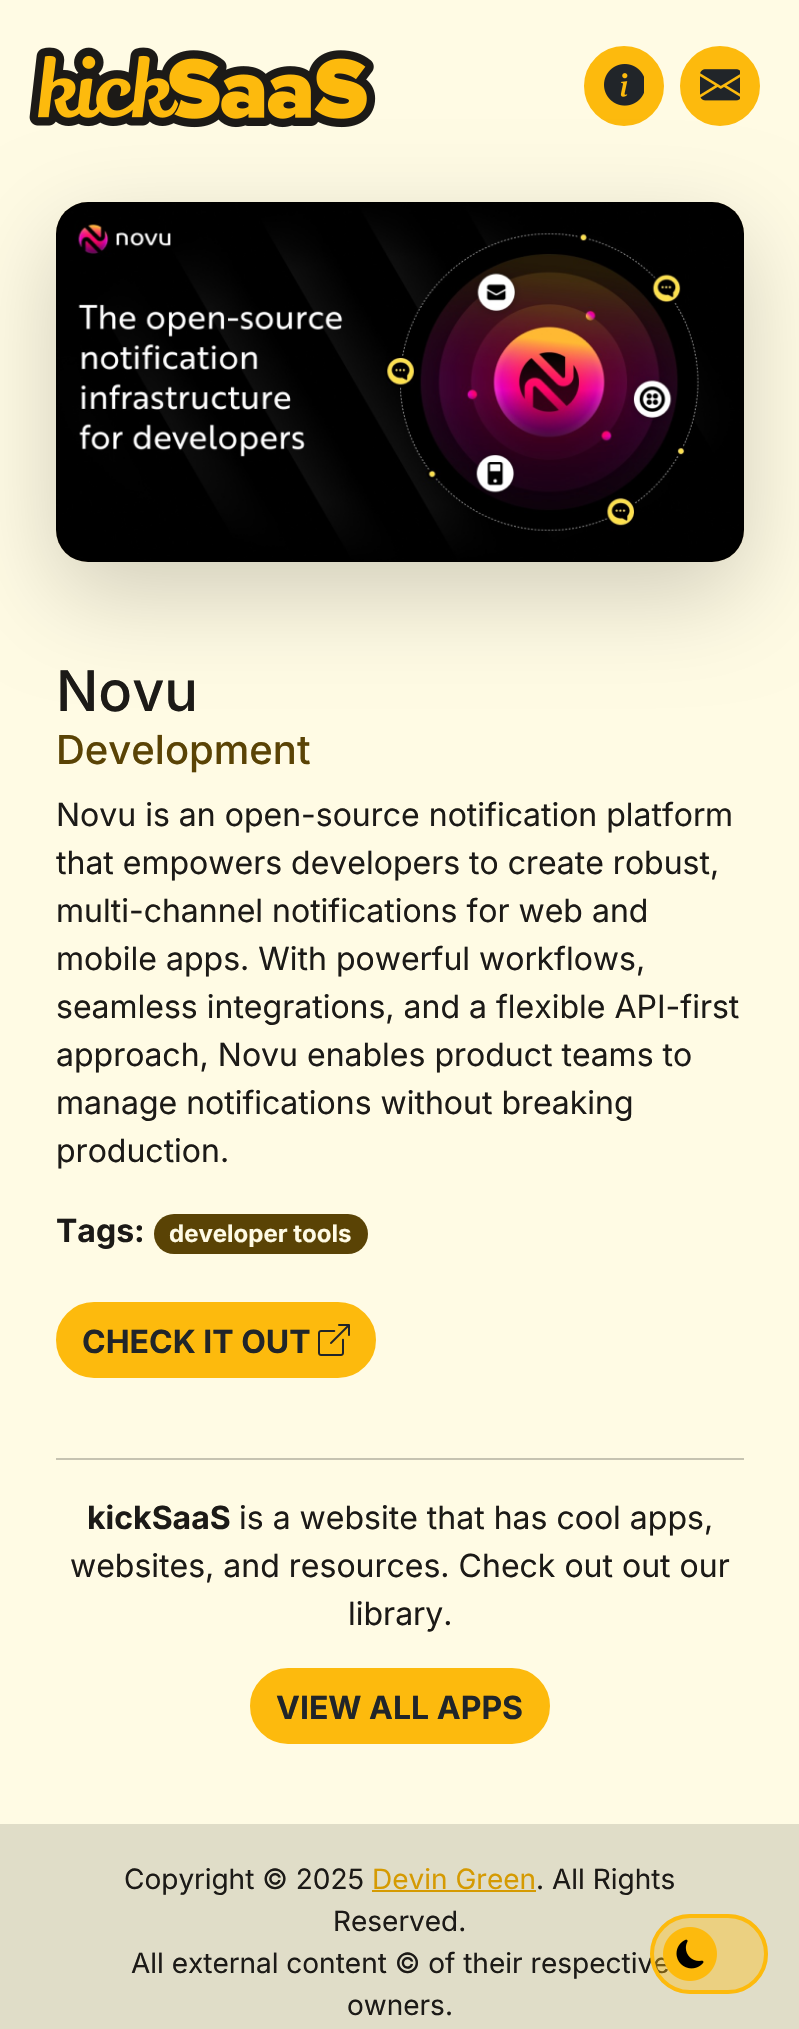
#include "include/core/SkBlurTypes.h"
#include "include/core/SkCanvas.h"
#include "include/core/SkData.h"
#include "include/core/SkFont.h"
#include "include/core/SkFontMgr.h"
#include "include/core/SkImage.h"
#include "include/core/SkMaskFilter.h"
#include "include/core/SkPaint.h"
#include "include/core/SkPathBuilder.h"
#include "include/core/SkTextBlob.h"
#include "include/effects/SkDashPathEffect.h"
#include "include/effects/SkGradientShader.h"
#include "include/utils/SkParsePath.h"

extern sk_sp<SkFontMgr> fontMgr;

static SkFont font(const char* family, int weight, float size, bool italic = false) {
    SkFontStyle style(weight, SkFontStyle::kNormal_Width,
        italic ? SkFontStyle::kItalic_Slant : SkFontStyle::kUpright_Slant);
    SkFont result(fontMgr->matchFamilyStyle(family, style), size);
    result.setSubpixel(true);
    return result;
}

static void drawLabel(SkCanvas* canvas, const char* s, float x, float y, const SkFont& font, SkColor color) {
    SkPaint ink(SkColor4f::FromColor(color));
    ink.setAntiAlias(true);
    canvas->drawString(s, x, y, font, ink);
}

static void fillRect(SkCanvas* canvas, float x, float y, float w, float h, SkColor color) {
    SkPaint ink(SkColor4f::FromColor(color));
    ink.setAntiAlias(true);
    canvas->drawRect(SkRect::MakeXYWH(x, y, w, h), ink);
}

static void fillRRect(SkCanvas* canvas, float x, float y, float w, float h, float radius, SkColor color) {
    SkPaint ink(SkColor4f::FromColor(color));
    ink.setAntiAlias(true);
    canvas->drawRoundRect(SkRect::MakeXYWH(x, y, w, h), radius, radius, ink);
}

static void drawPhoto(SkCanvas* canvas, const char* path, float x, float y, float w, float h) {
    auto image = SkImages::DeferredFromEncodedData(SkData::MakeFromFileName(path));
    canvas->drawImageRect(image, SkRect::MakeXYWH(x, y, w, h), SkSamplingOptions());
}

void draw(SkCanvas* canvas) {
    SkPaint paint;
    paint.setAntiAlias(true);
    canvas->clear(0xFFFFFBE4);
    drawPhoto(canvas, "assets/img1.png", 29, 47, 347, 81);
    paint.setColor(0xFFFDBA0D);
    canvas->drawCircle(624, 86, 39, paint);
    paint.setStroke(true);
    paint.setStrokeWidth(2);
    canvas->drawCircle(624, 86, 39, paint);
    drawPhoto(canvas, "assets/img2.png", 604, 64, 40, 42);
    paint.setStroke(false);
    canvas->drawCircle(720, 86, 39, paint);
    paint.setStroke(true);
    canvas->drawCircle(720, 86, 39, paint);
    drawPhoto(canvas, "assets/img3.png", 700, 69, 40, 32);
    fillRect(canvas, 0, 1824, 799, 205, 0xFFE0DDC8);
    SkFont font1 = font("Inter", 400, 28);
    drawLabel(canvas, "All external content © of their respective", 131, 1973, font1, 0xFF1C1A17);
    fillRRect(canvas, 650, 1914, 118, 80, 40, 0x61FDBA0D);
    drawPhoto(canvas, "assets/img4.png", 663, 1927, 54, 54);
    paint.setStrokeWidth(4);
    canvas->drawRoundRect(SkRect::MakeXYWH(652, 1916, 114, 76), 38, 38, paint);
    paint.setStroke(false);
    paint.setColor(0x2E000000);
    paint.setMaskFilter(SkMaskFilter::MakeBlur(kNormal_SkBlurStyle, 48));
    canvas->drawRoundRect(SkRect::MakeXYWH(56, 234, 688, 360), 32, 32, paint);
    paint.setMaskFilter(nullptr);
    fillRRect(canvas, 56, 202, 688, 360, 32, 0xFFF5DEB3);
    drawPhoto(canvas, "assets/img5.png", 56, 202, 688, 360);
    SkFont font2 = font("Inter", 500, 56);
    drawLabel(canvas, "Novu", 56, 711, font2, 0xFF1C1A17);
    SkFont font3 = font("Inter", 500, 40);
    drawLabel(canvas, "Development", 56, 764, font3, 0xFF5A4305);
    SkFont font4 = font("Inter", 400, 32);
    drawLabel(canvas, "Novu is an open-source notification platform", 56, 826, font4, 0xFF1C1A17);
    drawLabel(canvas, "that empowers developers to create robust,", 56, 874, font4, 0xFF1C1A17);
    drawLabel(canvas, "multi-channel notifications for web and", 56, 922, font4, 0xFF1C1A17);
    drawLabel(canvas, "mobile apps. With powerful workflows,", 56, 970, font4, 0xFF1C1A17);
    drawLabel(canvas, "seamless integrations, and a flexible API-first", 56, 1018, font4, 0xFF1C1A17);
    drawLabel(canvas, "approach, Novu enables product teams to", 56, 1066, font4, 0xFF1C1A17);
    drawLabel(canvas, "manage notifications without breaking", 56, 1114, font4, 0xFF1C1A17);
    drawLabel(canvas, "production.", 56, 1162, font4, 0xFF1C1A17);
    SkFont font5 = font("Inter", 700, 32);
    drawLabel(canvas, "Tags:", 56, 1242, font5, 0xFF1C1A17);
    fillRRect(canvas, 154, 1214, 214, 40, 20, 0xFF5A4305);
    SkFont font6 = font("Inter", 700, 24);
    drawLabel(canvas, "developer tools", 169, 1242, font6, 0xFFFFFBE4);
    paint.setColor(0xFFFDBA0D);
    canvas->drawRoundRect(SkRect::MakeXYWH(57, 1303, 318, 74), 37, 37, paint);
    paint.setStroke(true);
    paint.setStrokeWidth(2);
    canvas->drawRoundRect(SkRect::MakeXYWH(57, 1303, 318, 74), 37, 37, paint);
    drawLabel(canvas, "CHECK IT OUT", 82, 1353, font5, 0xFF212529);
    drawPhoto(canvas, "assets/img6.png", 318, 1324, 32, 32);
    fillRect(canvas, 56, 1458, 688, 2, 0xFFC6C3B1);
    drawLabel(canvas, "kickSaaS", 87, 1529, font5, 0xFF1C1A17);
    drawLabel(canvas, "is a website that has cool apps,", 239, 1529, font4, 0xFF1C1A17);
    drawLabel(canvas, "websites, and resources. Check out out our", 70, 1577, font4, 0xFF1C1A17);
    drawLabel(canvas, "library.", 348, 1625, font4, 0xFF1C1A17);
    paint.setStroke(false);
    canvas->drawRoundRect(SkRect::MakeXYWH(251, 1669, 298, 74), 37, 37, paint);
    paint.setStroke(true);
    canvas->drawRoundRect(SkRect::MakeXYWH(251, 1669, 298, 74), 37, 37, paint);
    drawLabel(canvas, "VIEW ALL APPS", 276, 1719, font5, 0xFF212529);
    drawLabel(canvas, "Copyright © 2025", 124, 1889, font1, 0xFF1C1A17);
    drawLabel(canvas, "Devin Green", 372, 1889, font1, 0xFFD59A02);
    fillRect(canvas, 372, 1890, 164, 2, 0xFFD59A02);
    drawLabel(canvas, ". All Rights", 536, 1889, font1, 0xFF1C1A17);
    drawLabel(canvas, "Reserved.", 333, 1931, font1, 0xFF1C1A17);
    drawLabel(canvas, "owners.", 347, 2015, font1, 0xFF1C1A17);
}
